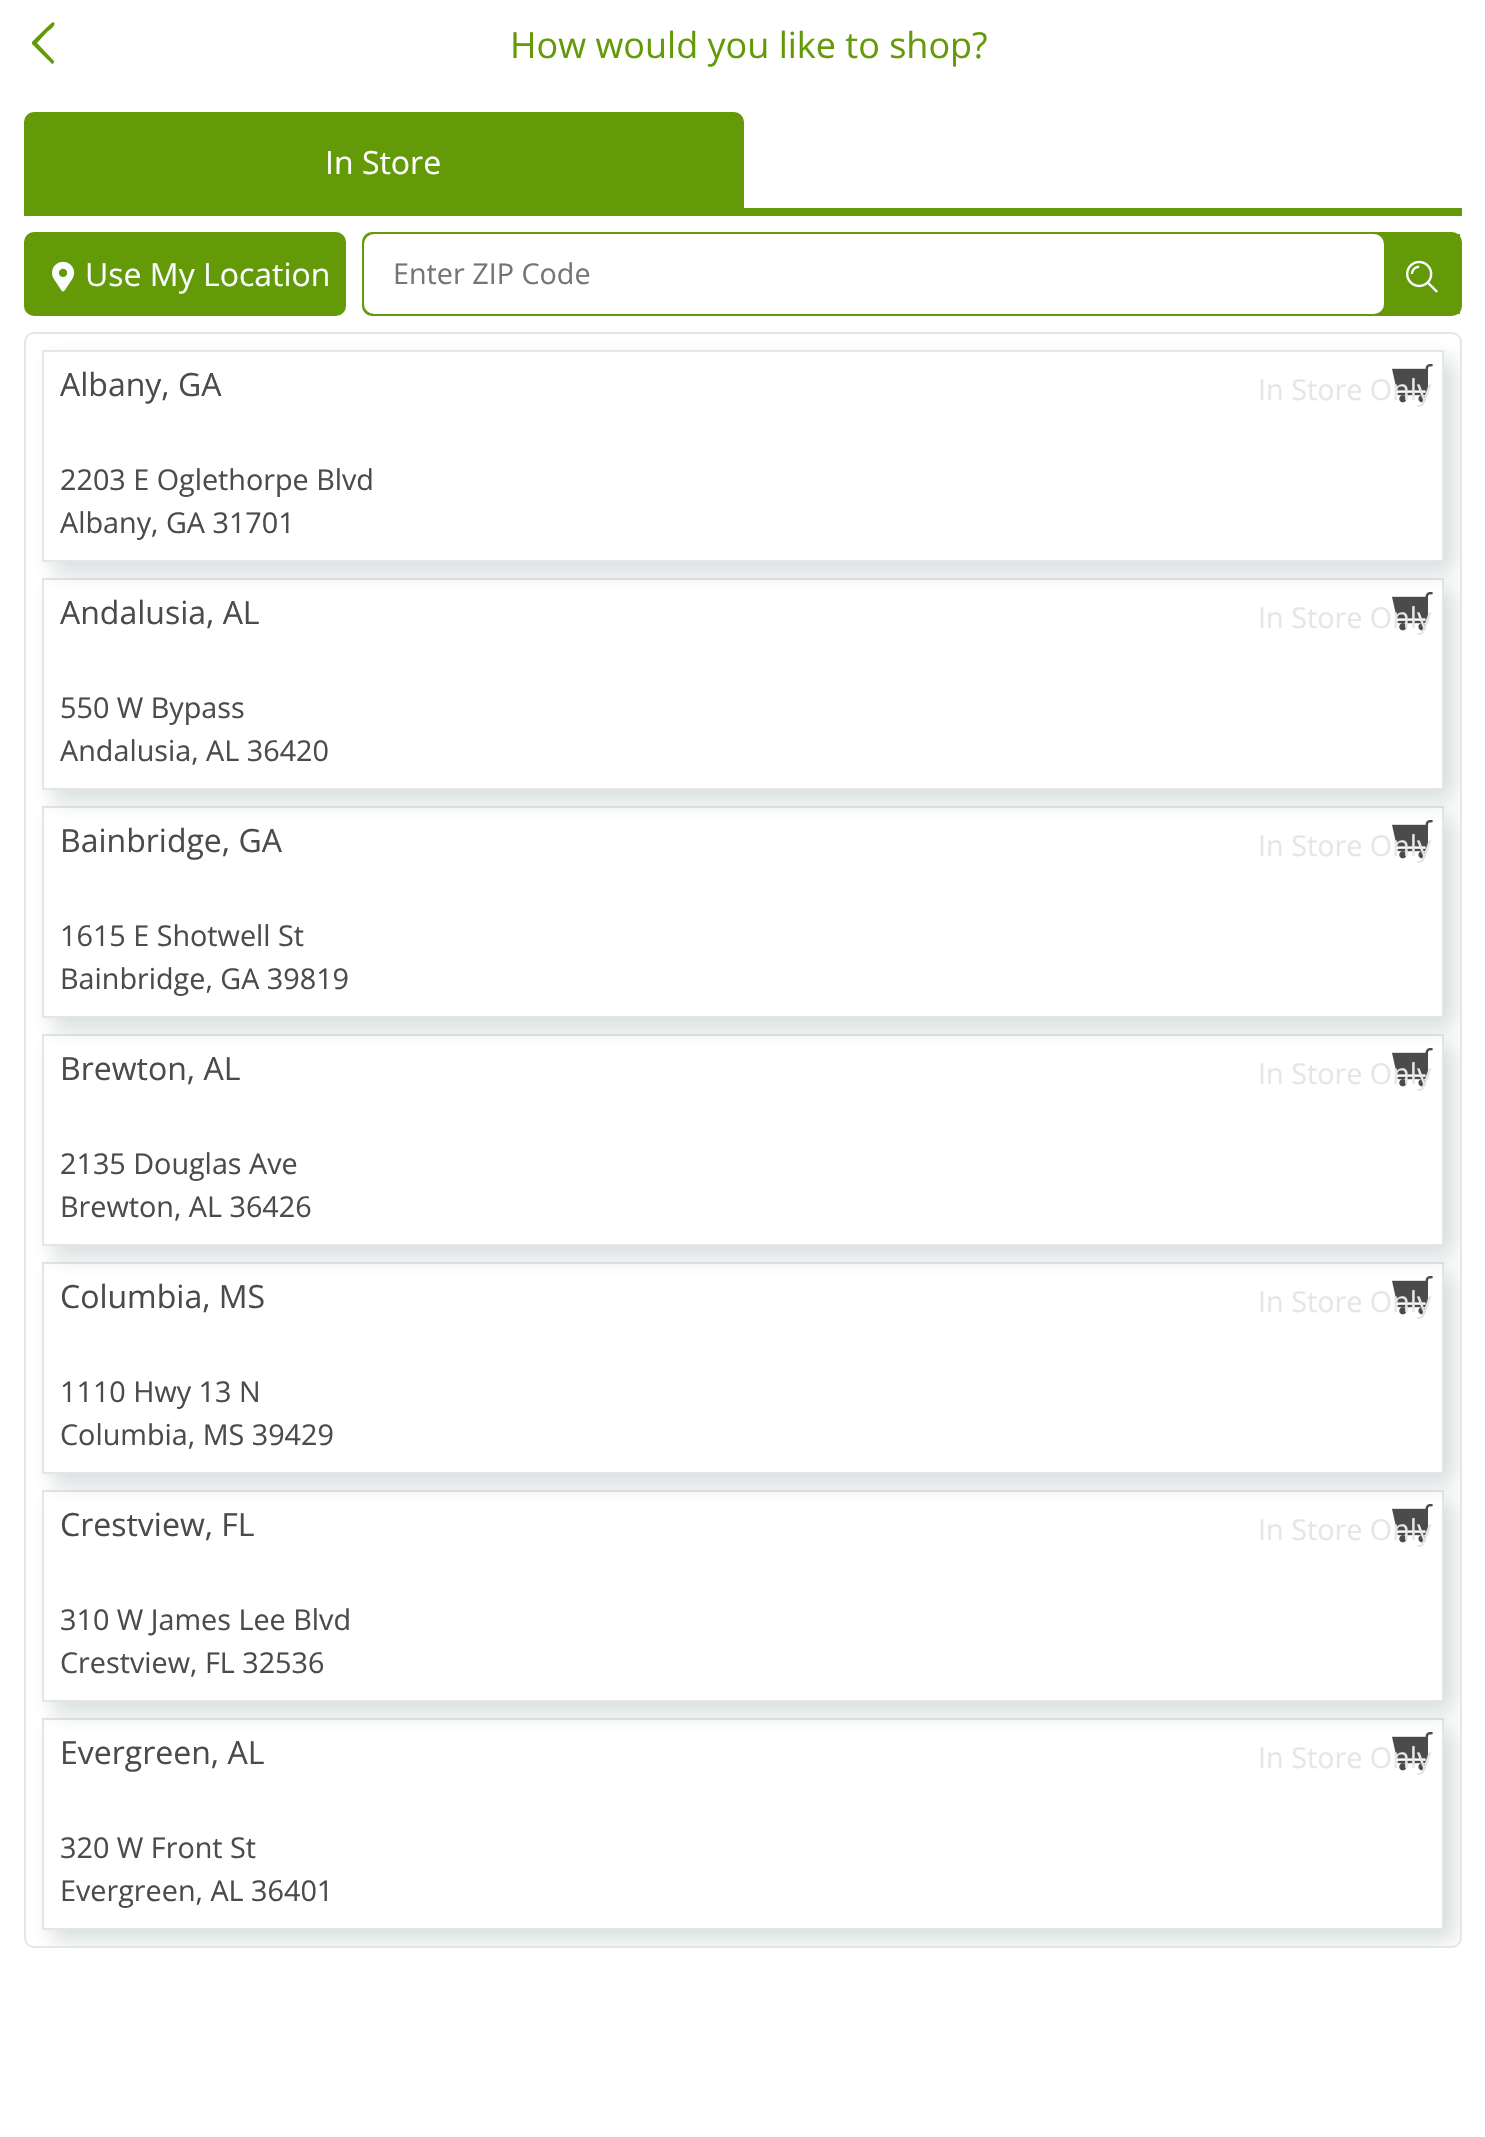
#include "include/core/SkBlurTypes.h"
#include "include/core/SkCanvas.h"
#include "include/core/SkData.h"
#include "include/core/SkFont.h"
#include "include/core/SkFontMgr.h"
#include "include/core/SkImage.h"
#include "include/core/SkMaskFilter.h"
#include "include/core/SkPaint.h"
#include "include/core/SkPathBuilder.h"
#include "include/core/SkTextBlob.h"
#include "include/effects/SkDashPathEffect.h"
#include "include/effects/SkGradientShader.h"
#include "include/utils/SkParsePath.h"

extern sk_sp<SkFontMgr> fontMgr;

static SkFont font(const char* family, int weight, float size, bool italic = false) {
    SkFontStyle style(weight, SkFontStyle::kNormal_Width,
        italic ? SkFontStyle::kItalic_Slant : SkFontStyle::kUpright_Slant);
    SkFont result(fontMgr->matchFamilyStyle(family, style), size);
    result.setSubpixel(true);
    return result;
}

static void drawLabel(SkCanvas* canvas, const char* s, float x, float y, const SkFont& font, SkColor color) {
    SkPaint ink(SkColor4f::FromColor(color));
    ink.setAntiAlias(true);
    canvas->drawString(s, x, y, font, ink);
}

static void fillRect(SkCanvas* canvas, float x, float y, float w, float h, SkColor color) {
    SkPaint ink(SkColor4f::FromColor(color));
    ink.setAntiAlias(true);
    canvas->drawRect(SkRect::MakeXYWH(x, y, w, h), ink);
}

static void fillRRect(SkCanvas* canvas, float x, float y, float w, float h, float radius, SkColor color) {
    SkPaint ink(SkColor4f::FromColor(color));
    ink.setAntiAlias(true);
    canvas->drawRoundRect(SkRect::MakeXYWH(x, y, w, h), radius, radius, ink);
}

static void drawPhoto(SkCanvas* canvas, const char* path, float x, float y, float w, float h) {
    auto image = SkImages::DeferredFromEncodedData(SkData::MakeFromFileName(path));
    canvas->drawImageRect(image, SkRect::MakeXYWH(x, y, w, h), SkSamplingOptions());
}

static SkPath parsePath(const char* data, bool evenOdd = false) {
    SkPath result = *SkParsePath::FromSVGString(data);
    if (evenOdd) result.setFillType(SkPathFillType::kEvenOdd);
    return result;
}

void draw(SkCanvas* canvas) {
    SkPaint paint;
    paint.setAntiAlias(true);
    canvas->clear(0xFFFFFFFF);
    paint.setColor(0xFF649A08);
    canvas->drawPath(parsePath("M54 61V62C53 67 49 60 48 60L32 44V42C34 40 52 22 53 22C58 24 49 31 48 31L37 43Z"), paint);
    SkFont font1 = font("Open Sans", 400, 36);
    drawLabel(canvas, "How would you like to shop?", 510, 58, font1, 0xFF649A08);
    fillRect(canvas, 24, 208, 1438, 8, 0xFF649A08);
    canvas->drawPath(parsePath("M34 113H734C739 113 743 117 743 122V207H25V122C25 117 29 113 34 113Z"), paint);
    paint.setStroke(true);
    paint.setStrokeWidth(2);
    canvas->drawPath(parsePath("M34 113H734C739 113 743 117 743 122V207H25V122C25 117 29 113 34 113Z"), paint);
    SkFont font2 = font("Open Sans", 400, 32);
    drawLabel(canvas, "In Store", 325, 174, font2, 0xFFFFFFFF);
    fillRRect(canvas, 24, 232, 322, 84, 10, 0xFF649A08);
    drawPhoto(canvas, "assets/img1.png", 52, 261, 23, 31);
    drawLabel(canvas, "Use My Location", 85, 286, font2, 0xFFF9FDFF);
    paint.setStroke(false);
    canvas->drawRoundRect(SkRect::MakeXYWH(363, 233, 1098, 82), 9, 9, paint);
    paint.setStroke(true);
    canvas->drawRoundRect(SkRect::MakeXYWH(363, 233, 1098, 82), 9, 9, paint);
    fillRRect(canvas, 364, 234, 1020, 80, 10, 0xFFFFFFFF);
    SkFont font3 = font("Open Sans", 400, 28.75f);
    drawLabel(canvas, "Enter ZIP Code", 393, 284, font3, 0xFF757575);
    fillRect(canvas, 1458, 234, 2, 80, 0xFF649A08);
    drawPhoto(canvas, "assets/img2.png", 1406, 260, 32, 33);
    canvas->save();
    canvas->clipPath(parsePath("M34 332H1452C1457.5 332 1462 336.5 1462 342V1938C1462 1943.5 1457.5 1948 1452 1948H34C28.5 1948 24 1943.5 24 1938V342C24 336.5 28.5 332 34 332Z"), true);
    paint.setStroke(false);
    {
        const SkColor colors[] = {0xFFCCCCCC, 0xFFFFFFFF};
        const float stops[] = {0, 1};
        SkMatrix m = SkMatrix::Translate(743, 1946).preScale(717, 28);
        paint.setShader(SkGradientShader::MakeRadial({0, 0}, 1, colors, stops, 2, SkTileMode::kClamp, 0, &m));
        paint.setAlpha(255);
    }
    canvas->drawRect(SkRect::MakeXYWH(26, 1918, 1434, 28), paint);
    {
        const SkColor colors[] = {0xFFCCCCCC, 0xFFFFFFFF};
        const float stops[] = {0, 1};
        SkMatrix m = SkMatrix::Translate(743, 334).preScale(717, 28);
        paint.setShader(SkGradientShader::MakeRadial({0, 0}, 1, colors, stops, 2, SkTileMode::kClamp, 0, &m));
        paint.setAlpha(255);
    }
    canvas->drawRect(SkRect::MakeXYWH(26, 334, 1434, 28), paint);
    {
        const SkColor colors[] = {0x00FFFFFF, 0xFFFFFFFF};
        const float stops[] = {0, 0.7f};
        const SkPoint ends[] = {{743, 1866}, {743, 1946}};
        paint.setShader(SkGradientShader::MakeLinear(ends, colors, stops, 2, SkTileMode::kClamp));
        paint.setAlpha(255);
    }
    canvas->drawRect(SkRect::MakeXYWH(26, 1867, 1434, 79), paint);
    {
        const SkColor colors[] = {0xFFFFFFFF, 0x00FFFFFF};
        const float stops[] = {0.3f, 1};
        const SkPoint ends[] = {{743, 334}, {743, 414}};
        paint.setShader(SkGradientShader::MakeLinear(ends, colors, stops, 2, SkTileMode::kClamp));
        paint.setAlpha(255);
    }
    canvas->drawRect(SkRect::MakeXYWH(26, 334, 1434, 79), paint);
    canvas->restore();
    paint.setStroke(true);
    paint.setShader(nullptr);
    paint.setColor(0xFFE6E6E6);
    canvas->drawRoundRect(SkRect::MakeXYWH(25, 333, 1436, 1614), 9, 9, paint);
    canvas->save();
    canvas->clipPath(parsePath("M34 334H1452C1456.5 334 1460 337.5 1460 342V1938C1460 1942.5 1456.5 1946 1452 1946H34C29.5 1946 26 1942.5 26 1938V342C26 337.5 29.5 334 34 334Z"), true);
    canvas->clipPath(parsePath("M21 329H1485V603H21ZM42 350H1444V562H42Z", true), true);
    paint.setStroke(false);
    paint.setColor(0x332F4F4F);
    paint.setMaskFilter(SkMaskFilter::MakeBlur(kNormal_SkBlurStyle, 10));
    canvas->drawRect(SkRect::MakeXYWH(52, 360, 1402, 212), paint);
    paint.setMaskFilter(nullptr);
    canvas->restore();
    paint.setStroke(true);
    paint.setColor(0xFFE6E6E6);
    canvas->drawRect(SkRect::MakeXYWH(43, 351, 1400, 210), paint);
    drawLabel(canvas, "Albany, GA", 60, 396, font2, 0xFF4C4B4B);
    drawPhoto(canvas, "assets/img3.png", 1392, 364, 41, 39);
    drawLabel(canvas, "In Store Only", 1258, 400, font3, 0xFFE6E6E6);
    drawLabel(canvas, "2203 E Oglethorpe Blvd", 60, 490, font3, 0xFF4C4B4B);
    drawLabel(canvas, "Albany, GA 31701", 60, 533, font3, 0xFF4C4B4B);
    canvas->save();
    canvas->clipPath(parsePath("M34 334H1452C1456.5 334 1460 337.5 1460 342V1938C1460 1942.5 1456.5 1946 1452 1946H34C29.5 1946 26 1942.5 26 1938V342C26 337.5 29.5 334 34 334Z"), true);
    canvas->clipPath(parsePath("M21 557H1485V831H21ZM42 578H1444V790H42Z", true), true);
    paint.setStroke(false);
    paint.setColor(0x332F4F4F);
    paint.setMaskFilter(SkMaskFilter::MakeBlur(kNormal_SkBlurStyle, 10));
    canvas->drawRect(SkRect::MakeXYWH(52, 588, 1402, 212), paint);
    paint.setMaskFilter(nullptr);
    canvas->restore();
    paint.setStroke(true);
    paint.setColor(0x1A000000);
    canvas->drawRect(SkRect::MakeXYWH(43, 579, 1400, 210), paint);
    drawLabel(canvas, "Andalusia, AL", 60, 624, font2, 0xFF4C4B4B);
    drawPhoto(canvas, "assets/img4.png", 1392, 592, 41, 39);
    drawLabel(canvas, "In Store Only", 1258, 628, font3, 0xFFE6E6E6);
    drawLabel(canvas, "550 W Bypass", 60, 718, font3, 0xFF4C4B4B);
    drawLabel(canvas, "Andalusia, AL 36420", 60, 761, font3, 0xFF4C4B4B);
    canvas->save();
    canvas->clipPath(parsePath("M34 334H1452C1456.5 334 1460 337.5 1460 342V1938C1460 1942.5 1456.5 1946 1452 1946H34C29.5 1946 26 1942.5 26 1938V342C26 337.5 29.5 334 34 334Z"), true);
    canvas->clipPath(parsePath("M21 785H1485V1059H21ZM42 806H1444V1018H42Z", true), true);
    paint.setStroke(false);
    paint.setColor(0x332F4F4F);
    paint.setMaskFilter(SkMaskFilter::MakeBlur(kNormal_SkBlurStyle, 10));
    canvas->drawRect(SkRect::MakeXYWH(52, 816, 1402, 212), paint);
    paint.setMaskFilter(nullptr);
    canvas->restore();
    paint.setStroke(true);
    paint.setColor(0x1A000000);
    canvas->drawRect(SkRect::MakeXYWH(43, 807, 1400, 210), paint);
    drawLabel(canvas, "Bainbridge, GA", 60, 852, font2, 0xFF4C4B4B);
    drawPhoto(canvas, "assets/img4.png", 1392, 820, 41, 39);
    drawLabel(canvas, "In Store Only", 1258, 856, font3, 0xFFE6E6E6);
    drawLabel(canvas, "1615 E Shotwell St", 60, 946, font3, 0xFF4C4B4B);
    drawLabel(canvas, "Bainbridge, GA 39819", 60, 989, font3, 0xFF4C4B4B);
    canvas->save();
    canvas->clipPath(parsePath("M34 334H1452C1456.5 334 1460 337.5 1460 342V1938C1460 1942.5 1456.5 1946 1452 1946H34C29.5 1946 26 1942.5 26 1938V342C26 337.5 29.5 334 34 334Z"), true);
    canvas->clipPath(parsePath("M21 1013H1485V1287H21ZM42 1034H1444V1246H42Z", true), true);
    paint.setStroke(false);
    paint.setColor(0x332F4F4F);
    paint.setMaskFilter(SkMaskFilter::MakeBlur(kNormal_SkBlurStyle, 10));
    canvas->drawRect(SkRect::MakeXYWH(52, 1044, 1402, 212), paint);
    paint.setMaskFilter(nullptr);
    canvas->restore();
    paint.setStroke(true);
    paint.setColor(0x1A000000);
    canvas->drawRect(SkRect::MakeXYWH(43, 1035, 1400, 210), paint);
    drawLabel(canvas, "Brewton, AL", 60, 1080, font2, 0xFF4C4B4B);
    drawPhoto(canvas, "assets/img4.png", 1392, 1048, 41, 39);
    drawLabel(canvas, "In Store Only", 1258, 1084, font3, 0xFFE6E6E6);
    drawLabel(canvas, "2135 Douglas Ave", 60, 1174, font3, 0xFF4C4B4B);
    drawLabel(canvas, "Brewton, AL 36426", 60, 1217, font3, 0xFF4C4B4B);
    canvas->save();
    canvas->clipPath(parsePath("M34 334H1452C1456.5 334 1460 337.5 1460 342V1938C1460 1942.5 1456.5 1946 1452 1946H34C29.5 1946 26 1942.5 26 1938V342C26 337.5 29.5 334 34 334Z"), true);
    canvas->clipPath(parsePath("M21 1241H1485V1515H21ZM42 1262H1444V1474H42Z", true), true);
    paint.setStroke(false);
    paint.setColor(0x332F4F4F);
    paint.setMaskFilter(SkMaskFilter::MakeBlur(kNormal_SkBlurStyle, 10));
    canvas->drawRect(SkRect::MakeXYWH(52, 1272, 1402, 212), paint);
    paint.setMaskFilter(nullptr);
    canvas->restore();
    paint.setStroke(true);
    paint.setColor(0x1A000000);
    canvas->drawRect(SkRect::MakeXYWH(43, 1263, 1400, 210), paint);
    drawLabel(canvas, "Columbia, MS", 60, 1308, font2, 0xFF4C4B4B);
    drawPhoto(canvas, "assets/img4.png", 1392, 1276, 41, 39);
    drawLabel(canvas, "In Store Only", 1258, 1312, font3, 0xFFE6E6E6);
    drawLabel(canvas, "1110 Hwy 13 N", 60, 1402, font3, 0xFF4C4B4B);
    drawLabel(canvas, "Columbia, MS 39429", 60, 1445, font3, 0xFF4C4B4B);
    canvas->save();
    canvas->clipPath(parsePath("M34 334H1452C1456.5 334 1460 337.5 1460 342V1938C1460 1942.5 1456.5 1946 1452 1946H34C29.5 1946 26 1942.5 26 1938V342C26 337.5 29.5 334 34 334Z"), true);
    canvas->clipPath(parsePath("M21 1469H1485V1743H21ZM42 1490H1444V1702H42Z", true), true);
    paint.setStroke(false);
    paint.setColor(0x332F4F4F);
    paint.setMaskFilter(SkMaskFilter::MakeBlur(kNormal_SkBlurStyle, 10));
    canvas->drawRect(SkRect::MakeXYWH(52, 1500, 1402, 212), paint);
    paint.setMaskFilter(nullptr);
    canvas->restore();
    paint.setStroke(true);
    paint.setColor(0x1A000000);
    canvas->drawRect(SkRect::MakeXYWH(43, 1491, 1400, 210), paint);
    drawLabel(canvas, "Crestview, FL", 60, 1536, font2, 0xFF4C4B4B);
    drawPhoto(canvas, "assets/img4.png", 1392, 1504, 41, 39);
    drawLabel(canvas, "In Store Only", 1258, 1540, font3, 0xFFE6E6E6);
    drawLabel(canvas, "310 W James Lee Blvd", 60, 1630, font3, 0xFF4C4B4B);
    drawLabel(canvas, "Crestview, FL 32536", 60, 1673, font3, 0xFF4C4B4B);
    canvas->save();
    canvas->clipPath(parsePath("M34 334H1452C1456.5 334 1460 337.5 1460 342V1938C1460 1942.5 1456.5 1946 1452 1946H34C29.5 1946 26 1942.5 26 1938V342C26 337.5 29.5 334 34 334Z"), true);
    canvas->clipPath(parsePath("M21 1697H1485V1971H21ZM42 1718H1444V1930H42Z", true), true);
    paint.setStroke(false);
    paint.setColor(0x332F4F4F);
    paint.setMaskFilter(SkMaskFilter::MakeBlur(kNormal_SkBlurStyle, 10));
    canvas->drawRect(SkRect::MakeXYWH(52, 1728, 1402, 212), paint);
    paint.setMaskFilter(nullptr);
    canvas->restore();
    paint.setStroke(true);
    paint.setColor(0x1A000000);
    canvas->drawRect(SkRect::MakeXYWH(43, 1719, 1400, 210), paint);
    drawLabel(canvas, "Evergreen, AL", 60, 1764, font2, 0xFF4C4B4B);
    drawPhoto(canvas, "assets/img4.png", 1392, 1732, 41, 39);
    drawLabel(canvas, "In Store Only", 1258, 1768, font3, 0xFFE6E6E6);
    drawLabel(canvas, "320 W Front St", 60, 1858, font3, 0xFF4C4B4B);
    drawLabel(canvas, "Evergreen, AL 36401", 60, 1901, font3, 0xFF4C4B4B);
}
